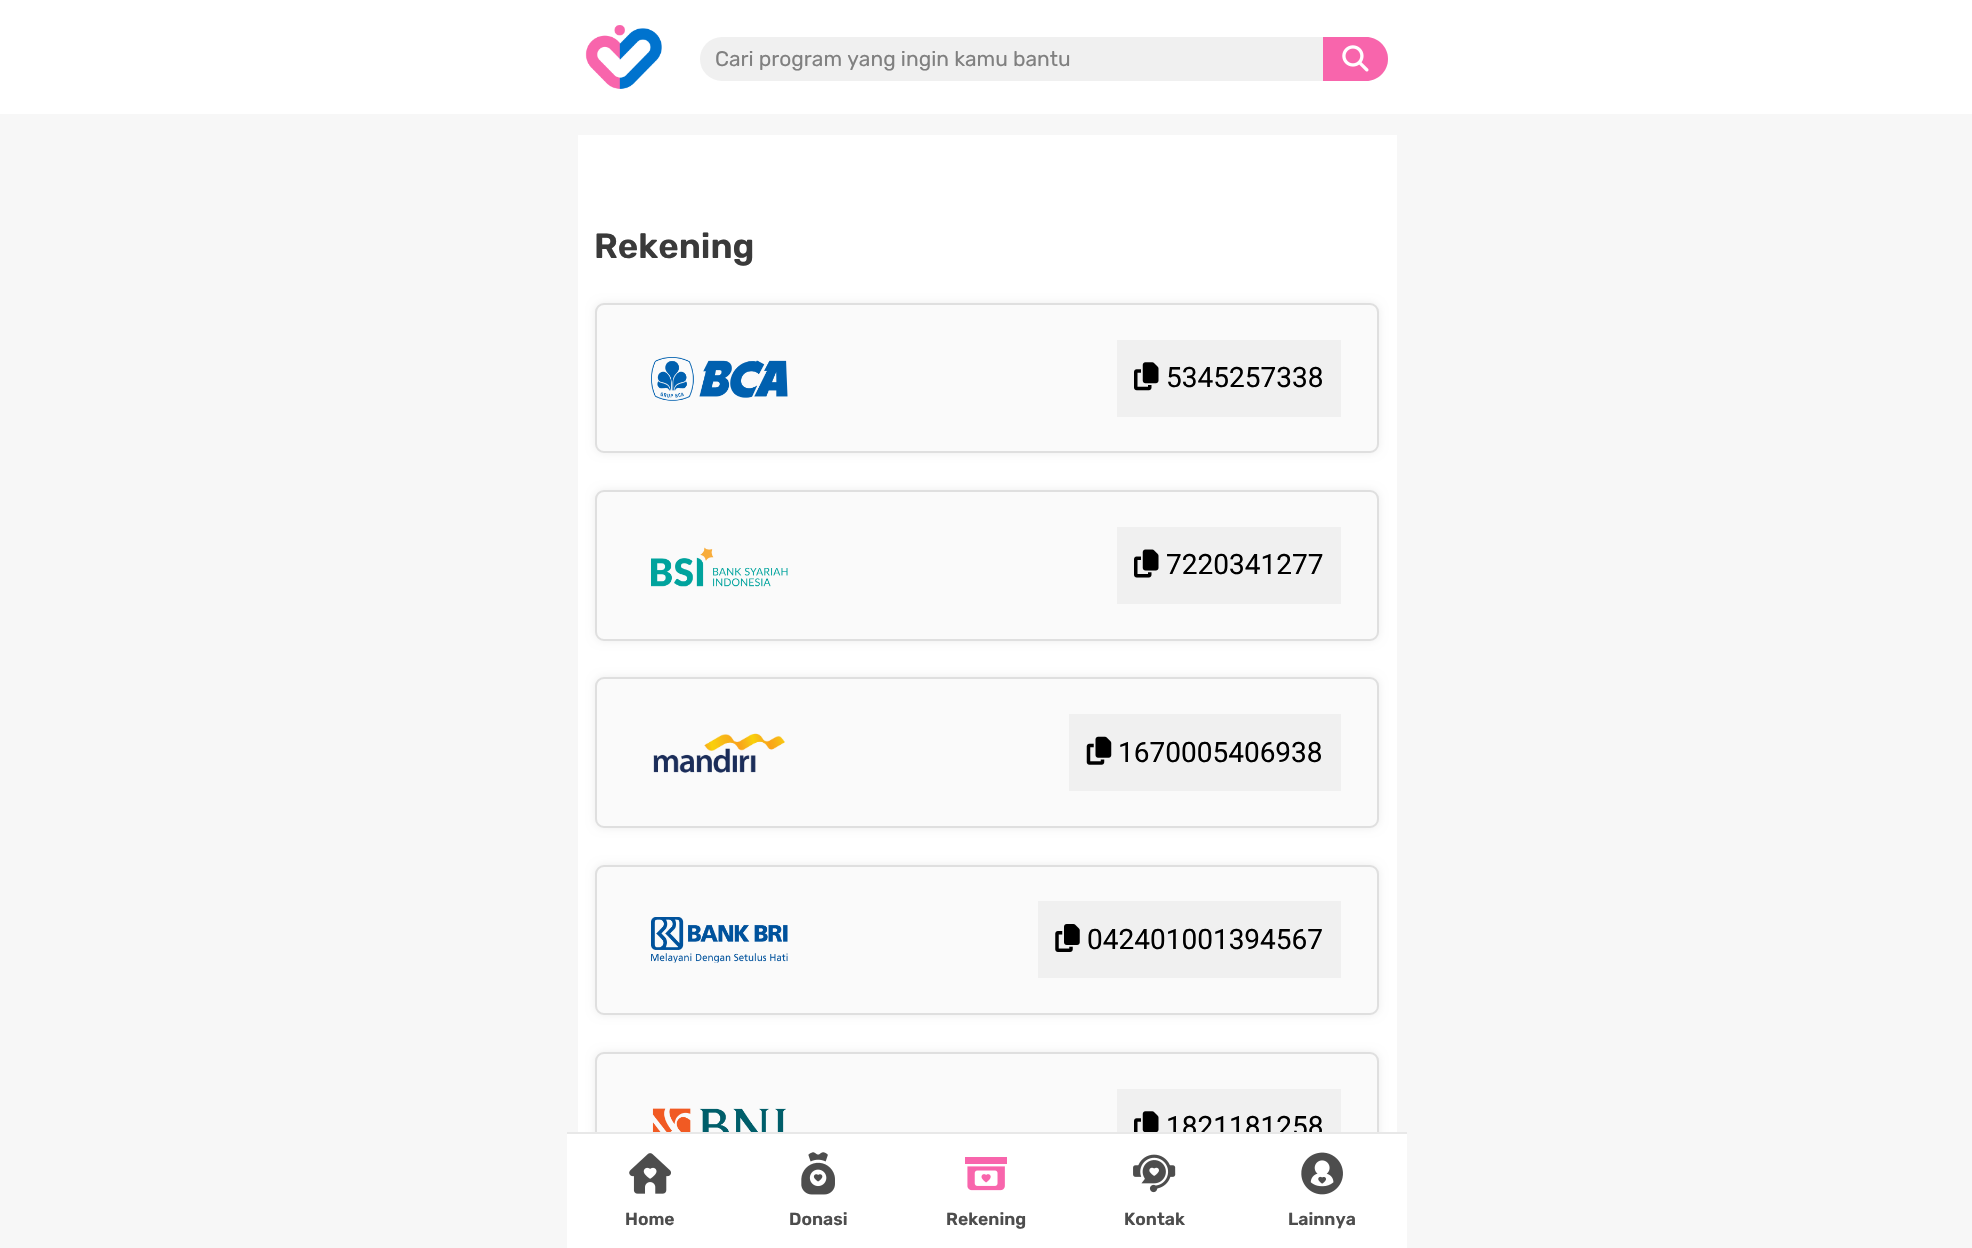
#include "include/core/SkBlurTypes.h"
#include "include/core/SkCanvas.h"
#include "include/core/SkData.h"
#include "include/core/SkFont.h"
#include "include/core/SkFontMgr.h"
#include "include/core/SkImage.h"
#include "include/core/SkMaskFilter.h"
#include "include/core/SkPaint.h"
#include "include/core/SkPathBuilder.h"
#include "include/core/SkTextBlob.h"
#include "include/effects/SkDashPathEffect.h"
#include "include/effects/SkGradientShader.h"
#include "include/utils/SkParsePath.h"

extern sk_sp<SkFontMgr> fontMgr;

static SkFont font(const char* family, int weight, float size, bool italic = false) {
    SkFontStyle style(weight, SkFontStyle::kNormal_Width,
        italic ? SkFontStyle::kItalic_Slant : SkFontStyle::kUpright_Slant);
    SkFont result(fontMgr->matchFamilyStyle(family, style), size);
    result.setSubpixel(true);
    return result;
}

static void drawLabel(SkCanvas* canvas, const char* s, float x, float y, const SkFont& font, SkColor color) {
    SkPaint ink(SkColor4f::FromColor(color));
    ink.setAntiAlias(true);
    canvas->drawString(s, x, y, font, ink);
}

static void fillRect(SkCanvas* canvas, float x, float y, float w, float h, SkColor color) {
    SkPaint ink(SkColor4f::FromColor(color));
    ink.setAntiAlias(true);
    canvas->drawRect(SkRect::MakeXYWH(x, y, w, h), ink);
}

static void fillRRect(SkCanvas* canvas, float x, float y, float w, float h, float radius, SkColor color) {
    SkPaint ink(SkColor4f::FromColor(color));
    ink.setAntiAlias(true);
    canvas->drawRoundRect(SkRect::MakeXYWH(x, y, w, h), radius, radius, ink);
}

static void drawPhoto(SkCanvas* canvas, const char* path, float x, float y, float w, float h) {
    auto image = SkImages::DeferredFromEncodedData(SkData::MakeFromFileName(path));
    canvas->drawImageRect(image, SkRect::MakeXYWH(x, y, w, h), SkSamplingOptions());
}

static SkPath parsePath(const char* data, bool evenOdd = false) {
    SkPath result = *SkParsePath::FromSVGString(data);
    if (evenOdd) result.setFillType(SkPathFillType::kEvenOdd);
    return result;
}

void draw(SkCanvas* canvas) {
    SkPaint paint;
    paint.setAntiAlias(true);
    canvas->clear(0xFFF7F7F7);
    fillRect(canvas, 0, 0, 1972, 114, 0xFFFFFFFF);
    drawPhoto(canvas, "assets/img1.png", 585, 25, 77, 64);
    fillRRect(canvas, 700, 37, 688, 44, 22, 0xFFF0F0F0);
    SkFont font1 = font("Rubik", 400, 21);
    drawLabel(canvas, "Cari program yang ingin kamu bantu", 715, 66, font1, 0xFF808080);
    paint.setColor(0xFFF865AC);
    canvas->drawPath(parsePath("M1323 37H1366C1378 37 1388 47 1388 59C1388 71 1378 81 1366 81H1323Z"), paint);
    drawPhoto(canvas, "assets/img2.png", 1342, 45, 27, 27);
    fillRect(canvas, 578, 135, 819, 997, 0xFFFFFFFF);
    SkFont font2 = font("Rubik", 600, 35);
    drawLabel(canvas, "Rekening", 594, 258, font2, 0xFF3A3A3A);
    paint.setColor(0x12000000);
    paint.setMaskFilter(SkMaskFilter::MakeBlur(kNormal_SkBlurStyle, 4.5f));
    canvas->drawRoundRect(SkRect::MakeXYWH(595, 303, 784, 150), 9, 9, paint);
    paint.setMaskFilter(nullptr);
    paint.setColor(0xFFFAFAFA);
    canvas->drawRoundRect(SkRect::MakeXYWH(596, 304, 782, 148), 8, 8, paint);
    paint.setStroke(true);
    paint.setStrokeWidth(2);
    paint.setColor(0xFFDFDFDF);
    canvas->drawRoundRect(SkRect::MakeXYWH(596, 304, 782, 148), 8, 8, paint);
    drawPhoto(canvas, "assets/img3.png", 651, 357, 137, 44);
    fillRect(canvas, 1117, 340, 224, 77, 0xFFF0F0F0);
    drawPhoto(canvas, "assets/img4.png", 1134, 362, 25, 29);
    SkFont font3 = font("Roboto", 400, 28);
    drawLabel(canvas, "5345257338", 1166, 387, font3, 0xFF000000);
    paint.setStroke(false);
    paint.setColor(0x12000000);
    paint.setMaskFilter(SkMaskFilter::MakeBlur(kNormal_SkBlurStyle, 4.5f));
    canvas->drawRoundRect(SkRect::MakeXYWH(595, 490, 784, 151), 9, 9, paint);
    paint.setMaskFilter(nullptr);
    paint.setColor(0xFFFAFAFA);
    canvas->drawRoundRect(SkRect::MakeXYWH(596, 491, 782, 149), 8, 8, paint);
    paint.setStroke(true);
    paint.setColor(0xFFDFDFDF);
    canvas->drawRoundRect(SkRect::MakeXYWH(596, 491, 782, 149), 8, 8, paint);
    drawPhoto(canvas, "assets/img5.png", 651, 547, 137, 40);
    fillRect(canvas, 1117, 527, 224, 77, 0xFFF0F0F0);
    drawPhoto(canvas, "assets/img6.png", 1134, 549, 25, 29);
    drawLabel(canvas, "7220341277", 1166, 574, font3, 0xFF000000);
    paint.setStroke(false);
    paint.setColor(0x12000000);
    paint.setMaskFilter(SkMaskFilter::MakeBlur(kNormal_SkBlurStyle, 4.5f));
    canvas->drawRoundRect(SkRect::MakeXYWH(595, 677, 784, 151), 9, 9, paint);
    paint.setMaskFilter(nullptr);
    paint.setColor(0xFFFAFAFA);
    canvas->drawRoundRect(SkRect::MakeXYWH(596, 678, 782, 149), 8, 8, paint);
    paint.setStroke(true);
    paint.setColor(0xFFDFDFDF);
    canvas->drawRoundRect(SkRect::MakeXYWH(596, 678, 782, 149), 8, 8, paint);
    drawPhoto(canvas, "assets/img7.png", 653, 733, 132, 40);
    fillRect(canvas, 1069, 714, 272, 77, 0xFFF0F0F0);
    drawPhoto(canvas, "assets/img8.png", 1086, 736, 26, 29);
    drawLabel(canvas, "1670005406938", 1118, 762, font3, 0xFF000000);
    paint.setStroke(false);
    paint.setColor(0x12000000);
    paint.setMaskFilter(SkMaskFilter::MakeBlur(kNormal_SkBlurStyle, 4.5f));
    canvas->drawRoundRect(SkRect::MakeXYWH(595, 865, 784, 150), 9, 9, paint);
    paint.setMaskFilter(nullptr);
    paint.setColor(0xFFFAFAFA);
    canvas->drawRoundRect(SkRect::MakeXYWH(596, 866, 782, 148), 8, 8, paint);
    paint.setStroke(true);
    paint.setColor(0xFFDFDFDF);
    canvas->drawRoundRect(SkRect::MakeXYWH(596, 866, 782, 148), 8, 8, paint);
    drawPhoto(canvas, "assets/img9.png", 651, 917, 137, 46);
    fillRect(canvas, 1038, 901, 303, 77, 0xFFF0F0F0);
    drawPhoto(canvas, "assets/img10.png", 1055, 924, 25, 28);
    drawLabel(canvas, "042401001394567", 1087, 949, font3, 0xFF000000);
    paint.setStroke(false);
    paint.setColor(0x12000000);
    paint.setMaskFilter(SkMaskFilter::MakeBlur(kNormal_SkBlurStyle, 4.5f));
    canvas->drawRoundRect(SkRect::MakeXYWH(595, 1052, 784, 150), 9, 9, paint);
    paint.setMaskFilter(nullptr);
    paint.setColor(0xFFFAFAFA);
    canvas->drawRoundRect(SkRect::MakeXYWH(596, 1053, 782, 148), 8, 8, paint);
    paint.setStroke(true);
    paint.setColor(0xFFDFDFDF);
    canvas->drawRoundRect(SkRect::MakeXYWH(596, 1053, 782, 148), 8, 8, paint);
    drawPhoto(canvas, "assets/img11.png", 652, 1108, 134, 24);
    fillRect(canvas, 1117, 1089, 224, 43, 0xFFF0F0F0);
    drawPhoto(canvas, "assets/img12.png", 1134, 1111, 25, 21);
    drawLabel(canvas, "1821181258", 1166, 1136, font3, 0xFF000000);
    fillRect(canvas, 567, 1134, 840, 114, 0xFFFFFFFF);
    fillRect(canvas, 567, 1132, 840, 2, 0xFFE8E8E8);
    drawPhoto(canvas, "assets/img13.png", 629, 1153, 42, 41);
    SkFont font4 = font("Rubik", 600, 17.5f);
    drawLabel(canvas, "Home", 625, 1225, font4, 0xFF4D4D4D);
    drawPhoto(canvas, "assets/img14.png", 801, 1152, 34, 43);
    drawLabel(canvas, "Donasi", 789, 1225, font4, 0xFF4D4D4D);
    drawPhoto(canvas, "assets/img15.png", 965, 1157, 42, 34);
    drawLabel(canvas, "Rekening", 946, 1225, font4, 0xFF4D4D4D);
    drawPhoto(canvas, "assets/img16.png", 1133, 1154, 43, 39);
    drawLabel(canvas, "Kontak", 1124, 1225, font4, 0xFF4D4D4D);
    drawPhoto(canvas, "assets/img17.png", 1301, 1152, 42, 43);
    drawLabel(canvas, "Lainnya", 1288, 1225, font4, 0xFF4D4D4D);
}
